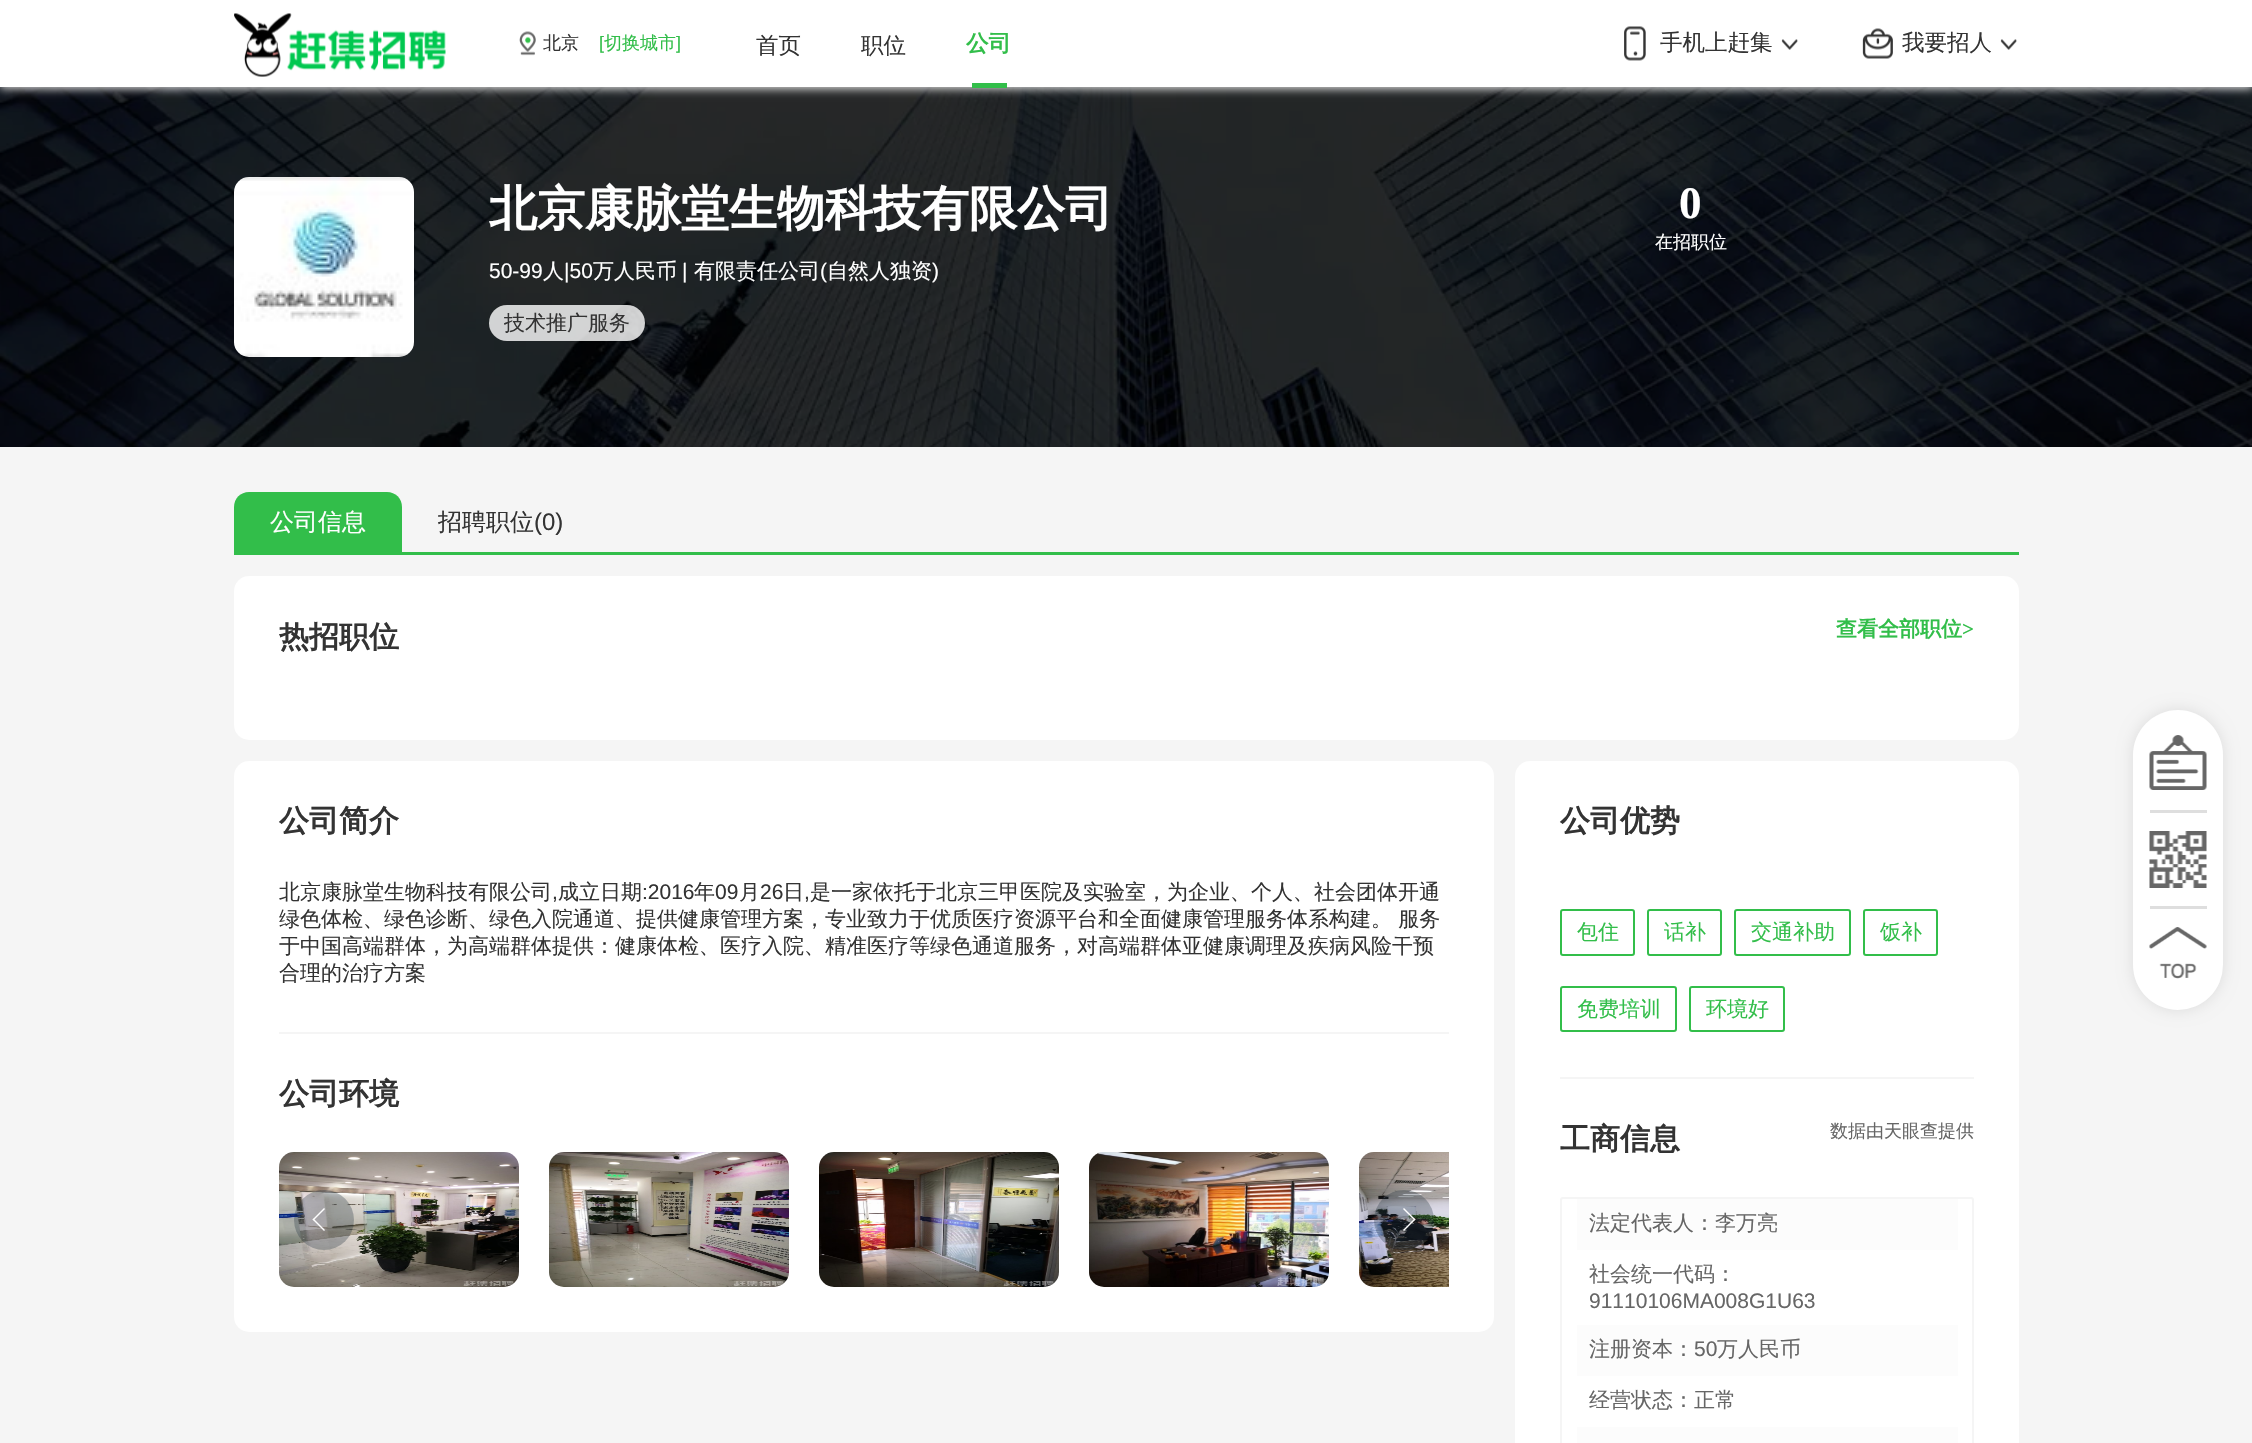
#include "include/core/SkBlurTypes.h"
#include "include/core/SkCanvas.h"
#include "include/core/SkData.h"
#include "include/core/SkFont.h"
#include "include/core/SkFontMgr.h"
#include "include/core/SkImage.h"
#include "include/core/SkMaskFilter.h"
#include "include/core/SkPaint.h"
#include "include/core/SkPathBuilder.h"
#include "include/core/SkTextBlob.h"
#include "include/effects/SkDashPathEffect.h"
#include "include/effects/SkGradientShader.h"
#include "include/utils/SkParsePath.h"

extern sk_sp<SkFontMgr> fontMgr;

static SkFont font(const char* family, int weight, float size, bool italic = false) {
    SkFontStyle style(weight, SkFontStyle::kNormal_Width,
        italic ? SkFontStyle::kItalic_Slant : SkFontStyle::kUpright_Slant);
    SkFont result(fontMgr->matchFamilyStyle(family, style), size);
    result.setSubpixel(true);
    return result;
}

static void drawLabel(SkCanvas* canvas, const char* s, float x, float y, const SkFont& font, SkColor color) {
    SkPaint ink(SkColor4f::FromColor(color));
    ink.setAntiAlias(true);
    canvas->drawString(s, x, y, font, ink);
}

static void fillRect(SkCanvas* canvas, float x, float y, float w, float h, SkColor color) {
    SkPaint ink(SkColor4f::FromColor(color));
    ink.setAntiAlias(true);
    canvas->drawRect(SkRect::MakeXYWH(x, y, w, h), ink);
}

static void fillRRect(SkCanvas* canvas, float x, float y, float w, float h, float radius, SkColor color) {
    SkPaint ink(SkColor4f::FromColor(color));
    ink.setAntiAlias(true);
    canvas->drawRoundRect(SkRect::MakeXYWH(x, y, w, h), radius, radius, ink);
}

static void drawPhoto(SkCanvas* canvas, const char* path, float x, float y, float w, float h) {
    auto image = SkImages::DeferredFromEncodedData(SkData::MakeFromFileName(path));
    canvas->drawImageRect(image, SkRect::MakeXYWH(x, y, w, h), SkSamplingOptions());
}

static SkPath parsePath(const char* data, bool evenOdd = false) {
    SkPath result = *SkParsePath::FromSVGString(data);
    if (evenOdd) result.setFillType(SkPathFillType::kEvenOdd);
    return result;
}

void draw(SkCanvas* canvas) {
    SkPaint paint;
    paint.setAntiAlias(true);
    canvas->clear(0xFFF5F5F5);
    drawPhoto(canvas, "assets/img6.png", 0, 87, 2252, 360);
    paint.setColor(0xFFDEDEDE);
    paint.setMaskFilter(SkMaskFilter::MakeBlur(kNormal_SkBlurStyle, 4.5f));
    canvas->drawRect(SkRect::MakeXYWH(0, 2, 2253, 87), paint);
    paint.setMaskFilter(nullptr);
    fillRect(canvas, 0, 0, 2252, 87, 0xFFFFFFFF);
    drawPhoto(canvas, "assets/img1.png", 234, 13, 212, 64);
    drawPhoto(canvas, "assets/img2.png", 519, 31, 17, 25);
    SkFont font1 = font("WenQuanYi Zen Hei", 500, 18);
    drawLabel(canvas, "北京", 543, 49, font1, 0xFF333333);
    SkFont font2 = font("Liberation Sans", 400, 18);
    drawLabel(canvas, "[", 599, 49, font2, 0xFF32BE4A);
    drawLabel(canvas, "切换城市", 604, 49, font1, 0xFF32BE4A);
    drawLabel(canvas, "]", 676, 49, font2, 0xFF32BE4A);
    SkFont font3 = font("WenQuanYi Zen Hei", 500, 22.5f);
    drawLabel(canvas, "首页", 756, 53, font3, 0xFF333333);
    drawLabel(canvas, "职位", 861, 53, font3, 0xFF333333);
    SkFont font4 = font("WenQuanYi Zen Hei", 700, 22.5f);
    drawLabel(canvas, "公司", 966, 51, font4, 0xFF32BE4A);
    fillRect(canvas, 972, 83, 35, 5, 0xFF32BE4A);
    drawPhoto(canvas, "assets/img3.png", 1624, 26, 22, 35);
    drawLabel(canvas, "手机上赶集", 1660, 50, font3, 0xFF333333);
    drawPhoto(canvas, "assets/img4.png", 1781, 39, 17, 11);
    drawPhoto(canvas, "assets/img5.png", 1862, 28, 31, 31);
    drawLabel(canvas, "我要招人", 1902, 50, font3, 0xFF333333);
    drawPhoto(canvas, "assets/img4.png", 2000, 39, 17, 11);
    drawPhoto(canvas, "assets/img7.png", 234, 177, 180, 180);
    SkFont font5 = font("WenQuanYi Zen Hei", 700, 48);
    drawLabel(canvas, "北京康脉堂生物科技有限公司", 489, 225, font5, 0xFFFFFFFF);
    SkFont font6 = font("Liberation Sans", 400, 21);
    drawLabel(canvas, "50-99", 489, 278, font6, 0xFFFFFFFF);
    SkFont font7 = font("WenQuanYi Zen Hei", 500, 21);
    drawLabel(canvas, "人", 543, 278, font7, 0xFFFFFFFF);
    drawLabel(canvas, "|50", 564, 278, font6, 0xFFFFFFFF);
    drawLabel(canvas, "万人民币", 593, 278, font7, 0xFFFFFFFF);
    drawLabel(canvas, "|", 682, 278, font6, 0xFFFFFFFF);
    drawLabel(canvas, "有限责任公司", 694, 278, font7, 0xFFFFFFFF);
    drawLabel(canvas, "(", 820, 278, font6, 0xFFFFFFFF);
    drawLabel(canvas, "自然人独资", 827, 278, font7, 0xFFFFFFFF);
    drawLabel(canvas, ")", 932, 278, font6, 0xFFFFFFFF);
    fillRRect(canvas, 489, 305, 156, 36, 18, 0xCCFFFFFF);
    drawLabel(canvas, "技术推广服务", 504, 330, font7, 0xFF333333);
    SkFont font8 = font("Liberation Serif", 700, 45);
    drawLabel(canvas, "0", 1679, 218, font8, 0xFFFFFFFF);
    drawLabel(canvas, "在招职位", 1655, 248, font1, 0xFFFFFFFF);
    fillRect(canvas, 234, 552, 1785, 3, 0xFF32BE4A);
    paint.setColor(0xFF32BE4A);
    canvas->drawPath(parsePath("M249 492H387C395.5 492 402 498.5 402 507V552H234V507C234 498.5 240.5 492 249 492Z"), paint);
    SkFont font9 = font("WenQuanYi Zen Hei", 500, 24);
    drawLabel(canvas, "公司信息", 270, 530, font9, 0xFFFFFFFF);
    drawLabel(canvas, "招聘职位", 438, 530, font9, 0xFF333333);
    SkFont font10 = font("Liberation Sans", 400, 24);
    drawLabel(canvas, "(0)", 534, 530, font10, 0xFF333333);
    fillRRect(canvas, 234, 576, 1785, 164, 15, 0xFFFFFFFF);
    SkFont font11 = font("WenQuanYi Zen Hei", 700, 30);
    drawLabel(canvas, "热招职位", 279, 647, font11, 0xFF333333);
    SkFont font12 = font("WenQuanYi Zen Hei", 700, 21);
    drawLabel(canvas, "查看全部职位", 1836, 636, font12, 0xFF32BE4A);
    SkFont font13 = font("Liberation Serif", 700, 21);
    drawLabel(canvas, ">", 1962, 636, font13, 0xFF32BE4A);
    fillRRect(canvas, 234, 761, 1260, 571, 15, 0xFFFFFFFF);
    fillRect(canvas, 279, 1032, 1170, 2, 0xFFF5F5F5);
    drawLabel(canvas, "公司简介", 279, 831, font11, 0xFF333333);
    drawLabel(canvas, "北京康脉堂生物科技有限公司", 279, 899, font7, 0xFF333333);
    drawLabel(canvas, ",", 552, 899, font6, 0xFF333333);
    drawLabel(canvas, "成立日期", 558, 899, font7, 0xFF333333);
    drawLabel(canvas, ":2016", 642, 899, font6, 0xFF333333);
    drawLabel(canvas, "年", 694, 899, font7, 0xFF333333);
    drawLabel(canvas, "09", 715, 899, font6, 0xFF333333);
    drawLabel(canvas, "月", 739, 899, font7, 0xFF333333);
    drawLabel(canvas, "26", 760, 899, font6, 0xFF333333);
    drawLabel(canvas, "日", 783, 899, font7, 0xFF333333);
    drawLabel(canvas, ",", 804, 899, font6, 0xFF333333);
    drawLabel(canvas, "是一家依托于北京三甲医院及实验室，为企业、个人、社会团体开通", 810, 899, font7, 0xFF333333);
    drawLabel(canvas, "绿色体检、绿色诊断、绿色入院通道、提供健康管理方案，专业致力于优质医疗资源平台和全面健康管理服务体系构建。 服务", 279, 926, font7, 0xFF333333);
    drawLabel(canvas, "于中国高端群体，为高端群体提供：健康体检、医疗入院、精准医疗等绿色通道服务，对高端群体亚健康调理及疾病风险干预", 279, 953, font7, 0xFF333333);
    drawLabel(canvas, "合理的治疗方案", 279, 980, font7, 0xFF333333);
    drawLabel(canvas, "公司环境", 279, 1104, font11, 0xFF333333);
    drawPhoto(canvas, "assets/img8.png", 279, 1152, 240, 135);
    drawPhoto(canvas, "assets/img9.png", 549, 1152, 240, 135);
    drawPhoto(canvas, "assets/img10.png", 819, 1152, 240, 135);
    drawPhoto(canvas, "assets/img11.png", 1089, 1152, 240, 135);
    drawPhoto(canvas, "assets/img12.png", 1359, 1152, 90, 135);
    paint.setColor(0x4D1F2D3D);
    canvas->drawCircle(324, 1220, 30, paint);
    paint.setColor(0xFFFFFFFF);
    canvas->drawPath(parsePath("M324 1231L312.5 1219.5L313.5 1218.5L325 1230Z"), paint);
    canvas->drawPath(parsePath("M313.5 1220.5L312.5 1219.5L324 1208L325 1209Z"), paint);
    paint.setColor(0x4D1F2D3D);
    canvas->drawCircle(1404, 1220, 30, paint);
    paint.setColor(0xFFFFFFFF);
    canvas->drawPath(parsePath("M1404 1208L1415.5 1219.5L1414.5 1220.5L1403 1209Z"), paint);
    canvas->drawPath(parsePath("M1414.5 1218.5L1415.5 1219.5L1404 1231L1403 1230Z"), paint);
    fillRRect(canvas, 1515, 761, 504, 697, 15, 0xFFFFFFFF);
    fillRect(canvas, 1560, 1077, 414, 2, 0xFFF5F5F5);
    drawLabel(canvas, "公司优势", 1560, 831, font11, 0xFF333333);
    paint.setStroke(true);
    paint.setStrokeWidth(2);
    paint.setColor(0xFF32BE4A);
    canvas->drawRoundRect(SkRect::MakeXYWH(1561, 910, 73, 45), 2, 2, paint);
    drawLabel(canvas, "包住", 1577, 939, font7, 0xFF32BE4A);
    canvas->drawRoundRect(SkRect::MakeXYWH(1648, 910, 73, 45), 2, 2, paint);
    drawLabel(canvas, "话补", 1664, 939, font7, 0xFF32BE4A);
    canvas->drawRoundRect(SkRect::MakeXYWH(1735, 910, 115, 45), 2, 2, paint);
    drawLabel(canvas, "交通补助", 1751, 939, font7, 0xFF32BE4A);
    canvas->drawRoundRect(SkRect::MakeXYWH(1864, 910, 73, 45), 2, 2, paint);
    drawLabel(canvas, "饭补", 1880, 939, font7, 0xFF32BE4A);
    canvas->drawRoundRect(SkRect::MakeXYWH(1561, 987, 115, 44), 2, 2, paint);
    drawLabel(canvas, "免费培训", 1577, 1016, font7, 0xFF32BE4A);
    canvas->drawRoundRect(SkRect::MakeXYWH(1690, 987, 94, 44), 2, 2, paint);
    drawLabel(canvas, "环境好", 1706, 1016, font7, 0xFF32BE4A);
    drawLabel(canvas, "工商信息", 1560, 1149, font11, 0xFF333333);
    drawLabel(canvas, "数据由天眼查提供", 1830, 1137, font1, 0xFF666666);
    paint.setColor(0xFFF5F5F5);
    canvas->drawRoundRect(SkRect::MakeXYWH(1561, 1198, 412, 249), 2, 2, paint);
    fillRect(canvas, 1577, 1199, 381, 51, 0xFFFCFCFC);
    drawLabel(canvas, "法定代表人：李万亮", 1589, 1230, font7, 0xFF666666);
    drawLabel(canvas, "社会统一代码：", 1589, 1281, font7, 0xFF666666);
    drawLabel(canvas, "91110106MA008G1U63", 1589, 1308, font6, 0xFF666666);
    fillRect(canvas, 1577, 1325, 381, 51, 0xFFFCFCFC);
    drawLabel(canvas, "注册资本：", 1589, 1356, font7, 0xFF666666);
    drawLabel(canvas, "50", 1694, 1356, font6, 0xFF666666);
    drawLabel(canvas, "万人民币", 1717, 1356, font7, 0xFF666666);
    drawLabel(canvas, "经营状态：正常", 1589, 1407, font7, 0xFF666666);
    fillRect(canvas, 1577, 1427, 381, 16, 0xFFFCFCFC);
    paint.setStroke(false);
    paint.setColor(0x1A000000);
    paint.setMaskFilter(SkMaskFilter::MakeBlur(kNormal_SkBlurStyle, 7.5f));
    canvas->drawRoundRect(SkRect::MakeXYWH(2133, 710, 90, 300), 45, 45, paint);
    paint.setMaskFilter(nullptr);
    fillRRect(canvas, 2133, 710, 90, 300, 45, 0xFFFFFFFF);
    drawPhoto(canvas, "assets/img13.png", 2149, 735, 58, 55);
    fillRect(canvas, 2150, 810, 57, 3, 0xFFDEDEDE);
    drawPhoto(canvas, "assets/img14.png", 2149, 831, 58, 57);
    fillRect(canvas, 2150, 906, 57, 3, 0xFFDEDEDE);
    drawPhoto(canvas, "assets/img15.png", 2149, 927, 58, 52);
}
